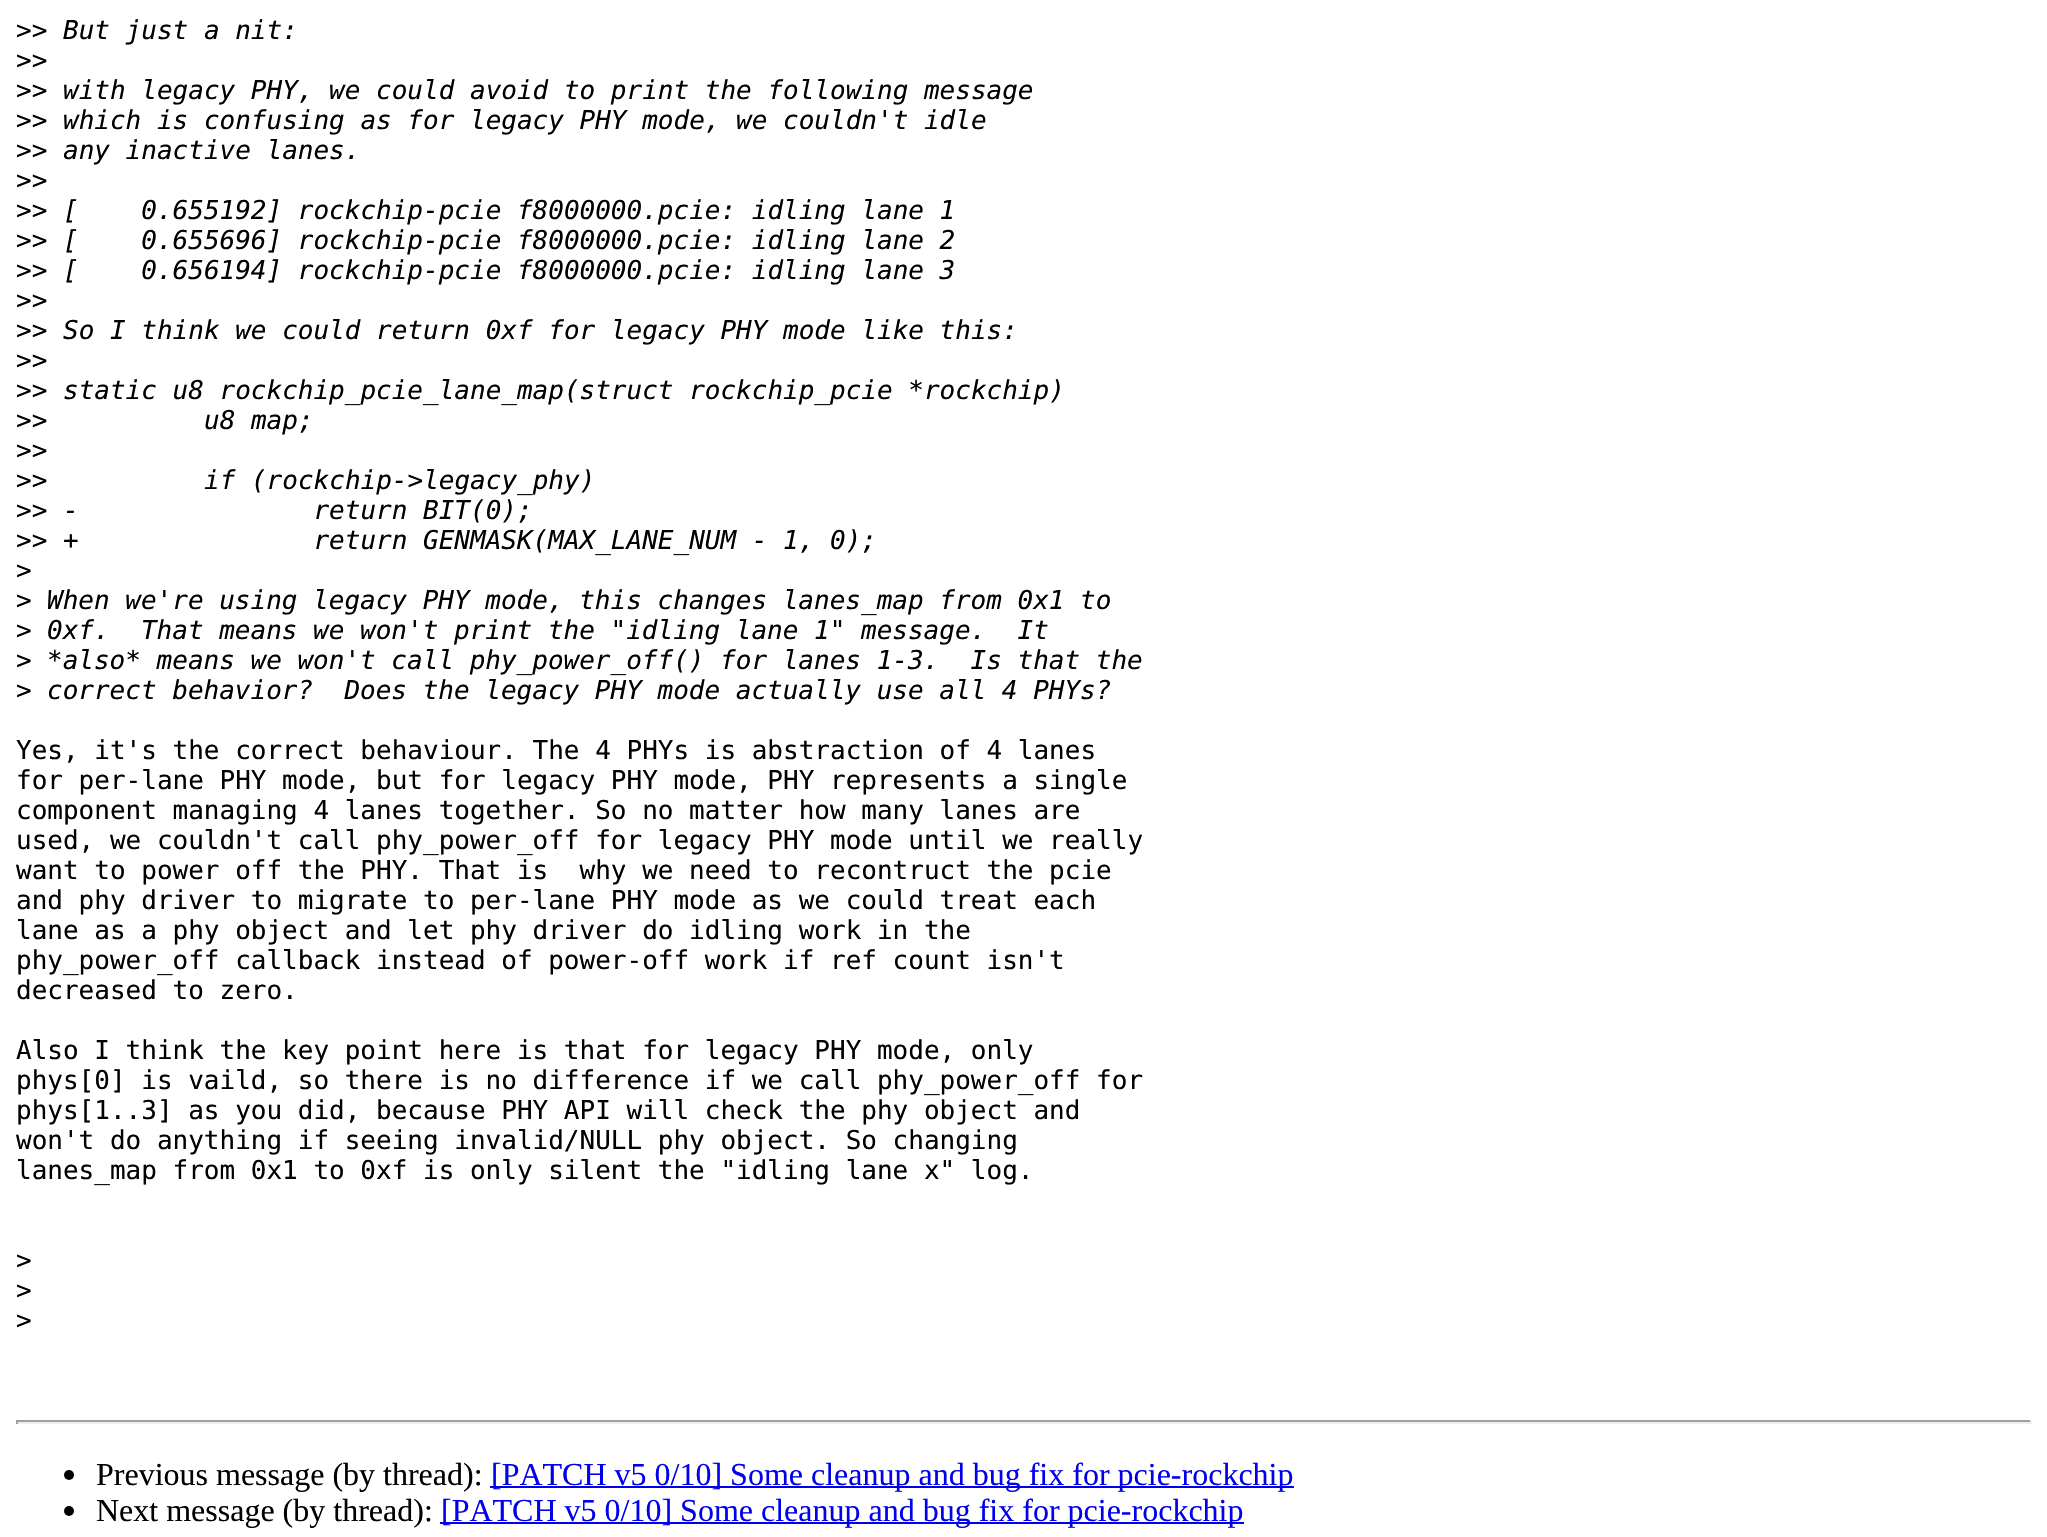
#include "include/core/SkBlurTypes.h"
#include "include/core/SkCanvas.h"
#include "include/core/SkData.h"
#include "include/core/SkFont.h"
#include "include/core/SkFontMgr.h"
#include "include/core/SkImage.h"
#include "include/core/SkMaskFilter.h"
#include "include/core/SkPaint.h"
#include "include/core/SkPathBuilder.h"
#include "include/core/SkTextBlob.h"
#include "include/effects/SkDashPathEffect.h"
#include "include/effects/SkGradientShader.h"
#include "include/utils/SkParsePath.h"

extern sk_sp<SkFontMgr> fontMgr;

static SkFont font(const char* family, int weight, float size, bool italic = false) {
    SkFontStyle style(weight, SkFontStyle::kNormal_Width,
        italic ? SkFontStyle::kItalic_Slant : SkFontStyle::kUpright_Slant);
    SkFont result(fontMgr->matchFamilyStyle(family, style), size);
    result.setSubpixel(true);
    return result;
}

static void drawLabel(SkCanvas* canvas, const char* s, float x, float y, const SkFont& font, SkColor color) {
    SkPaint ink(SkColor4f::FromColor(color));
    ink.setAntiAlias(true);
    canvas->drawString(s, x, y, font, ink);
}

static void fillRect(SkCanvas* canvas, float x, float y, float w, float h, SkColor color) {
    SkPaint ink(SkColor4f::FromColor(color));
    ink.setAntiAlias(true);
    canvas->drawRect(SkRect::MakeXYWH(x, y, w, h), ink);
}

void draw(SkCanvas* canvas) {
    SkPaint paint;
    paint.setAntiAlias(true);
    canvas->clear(0xFFFFFFFF);
    SkFont font1 = font("DejaVu Sans Mono", 400, 26);
    drawLabel(canvas, ">>", 16, 39, font1, 0xFF000000);
    SkFont font2 = font("DejaVu Sans Mono", 400, 26, true);
    drawLabel(canvas, "But just a nit:", 63, 39, font2, 0xFF000000);
    drawLabel(canvas, ">>", 16, 69, font1, 0xFF000000);
    drawLabel(canvas, ">>", 16, 99, font1, 0xFF000000);
    drawLabel(canvas, "with legacy PHY, we could avoid to print the following message", 63, 99, font2, 0xFF000000);
    drawLabel(canvas, ">>", 16, 129, font1, 0xFF000000);
    drawLabel(canvas, "which is confusing as for legacy PHY mode, we couldn't idle", 63, 129, font2, 0xFF000000);
    drawLabel(canvas, ">>", 16, 159, font1, 0xFF000000);
    drawLabel(canvas, "any inactive lanes.", 63, 159, font2, 0xFF000000);
    drawLabel(canvas, ">>", 16, 189, font1, 0xFF000000);
    drawLabel(canvas, ">>", 16, 219, font1, 0xFF000000);
    drawLabel(canvas, "[    0.655192] rockchip-pcie f8000000.pcie: idling lane 1", 63, 219, font2, 0xFF000000);
    drawLabel(canvas, ">>", 16, 249, font1, 0xFF000000);
    drawLabel(canvas, "[    0.655696] rockchip-pcie f8000000.pcie: idling lane 2", 63, 249, font2, 0xFF000000);
    drawLabel(canvas, ">>", 16, 279, font1, 0xFF000000);
    drawLabel(canvas, "[    0.656194] rockchip-pcie f8000000.pcie: idling lane 3", 63, 279, font2, 0xFF000000);
    drawLabel(canvas, ">>", 16, 309, font1, 0xFF000000);
    drawLabel(canvas, ">>", 16, 339, font1, 0xFF000000);
    drawLabel(canvas, "So I think we could return 0xf for legacy PHY mode like this:", 63, 339, font2, 0xFF000000);
    drawLabel(canvas, ">>", 16, 369, font1, 0xFF000000);
    drawLabel(canvas, ">>", 16, 399, font1, 0xFF000000);
    drawLabel(canvas, "static u8 rockchip_pcie_lane_map(struct rockchip_pcie *rockchip)", 63, 399, font2, 0xFF000000);
    drawLabel(canvas, ">>", 16, 429, font1, 0xFF000000);
    drawLabel(canvas, "u8 map;", 204, 429, font2, 0xFF000000);
    drawLabel(canvas, ">>", 16, 459, font1, 0xFF000000);
    drawLabel(canvas, ">>", 16, 489, font1, 0xFF000000);
    drawLabel(canvas, "if (rockchip->legacy_phy)", 204, 489, font2, 0xFF000000);
    drawLabel(canvas, ">>", 16, 519, font1, 0xFF000000);
    drawLabel(canvas, "-               return BIT(0);", 63, 519, font2, 0xFF000000);
    drawLabel(canvas, ">>", 16, 549, font1, 0xFF000000);
    drawLabel(canvas, "+               return GENMASK(MAX_LANE_NUM - 1, 0);", 63, 549, font2, 0xFF000000);
    drawLabel(canvas, ">", 16, 579, font1, 0xFF000000);
    drawLabel(canvas, ">", 16, 609, font1, 0xFF000000);
    drawLabel(canvas, "When we're using legacy PHY mode, this changes lanes_map from 0x1 to", 47, 609, font2, 0xFF000000);
    drawLabel(canvas, ">", 16, 639, font1, 0xFF000000);
    drawLabel(canvas, "0xf.  That means we won't print the \"idling lane 1\" message.  It", 47, 639, font2, 0xFF000000);
    drawLabel(canvas, ">", 16, 669, font1, 0xFF000000);
    drawLabel(canvas, "*also* means we won't call phy_power_off() for lanes 1-3.  Is that the", 47, 669, font2, 0xFF000000);
    drawLabel(canvas, ">", 16, 699, font1, 0xFF000000);
    drawLabel(canvas, "correct behavior?  Does the legacy PHY mode actually use all 4 PHYs?", 47, 699, font2, 0xFF000000);
    drawLabel(canvas, "Yes, it's the correct behaviour. The 4 PHYs is abstraction of 4 lanes", 16, 759, font1, 0xFF000000);
    drawLabel(canvas, "for per-lane PHY mode, but for legacy PHY mode, PHY represents a single", 16, 789, font1, 0xFF000000);
    drawLabel(canvas, "component managing 4 lanes together. So no matter how many lanes are", 16, 819, font1, 0xFF000000);
    drawLabel(canvas, "used, we couldn't call phy_power_off for legacy PHY mode until we really", 16, 849, font1, 0xFF000000);
    drawLabel(canvas, "want to power off the PHY. That is  why we need to recontruct the pcie", 16, 879, font1, 0xFF000000);
    drawLabel(canvas, "and phy driver to migrate to per-lane PHY mode as we could treat each", 16, 909, font1, 0xFF000000);
    drawLabel(canvas, "lane as a phy object and let phy driver do idling work in the", 16, 939, font1, 0xFF000000);
    drawLabel(canvas, "phy_power_off callback instead of power-off work if ref count isn't", 16, 969, font1, 0xFF000000);
    drawLabel(canvas, "decreased to zero.", 16, 999, font1, 0xFF000000);
    drawLabel(canvas, "Also I think the key point here is that for legacy PHY mode, only", 16, 1059, font1, 0xFF000000);
    drawLabel(canvas, "phys[0] is vaild, so there is no difference if we call phy_power_off for", 16, 1089, font1, 0xFF000000);
    drawLabel(canvas, "phys[1..3] as you did, because PHY API will check the phy object and", 16, 1119, font1, 0xFF000000);
    drawLabel(canvas, "won't do anything if seeing invalid/NULL phy object. So changing", 16, 1149, font1, 0xFF000000);
    drawLabel(canvas, "lanes_map from 0x1 to 0xf is only silent the \"idling lane x\" log.", 16, 1179, font1, 0xFF000000);
    drawLabel(canvas, ">", 16, 1269, font1, 0xFF000000);
    drawLabel(canvas, ">", 16, 1299, font1, 0xFF000000);
    drawLabel(canvas, ">", 16, 1329, font1, 0xFF000000);
    fillRect(canvas, 16, 1420, 2016, 2, 0xFF9F9F9F);
    fillRect(canvas, 2030, 1420, 2, 4, 0xFFEEEEEE);
    fillRect(canvas, 16, 1422, 2016, 2, 0xFFEEEEEE);
    fillRect(canvas, 16, 1420, 2, 4, 0xFF9F9F9F);
    paint.setColor(0xFF000000);
    canvas->drawCircle(69, 1475, 5, paint);
    SkFont font3 = font("Liberation Serif", 400, 32);
    drawLabel(canvas, "Previous message (by thread):", 96, 1485, font3, 0xFF000000);
    fillRect(canvas, 490, 1486, 804, 2, 0xFF0000EE);
    drawLabel(canvas, "[PATCH v5 0/10] Some cleanup and bug fix for pcie-rockchip", 491, 1485, font3, 0xFF0000EE);
    canvas->drawCircle(69, 1511, 5, paint);
    drawLabel(canvas, "Next message (by thread):", 96, 1521, font3, 0xFF000000);
    fillRect(canvas, 440, 1522, 804, 2, 0xFF0000EE);
    drawLabel(canvas, "[PATCH v5 0/10] Some cleanup and bug fix for pcie-rockchip", 441, 1521, font3, 0xFF0000EE);
}
